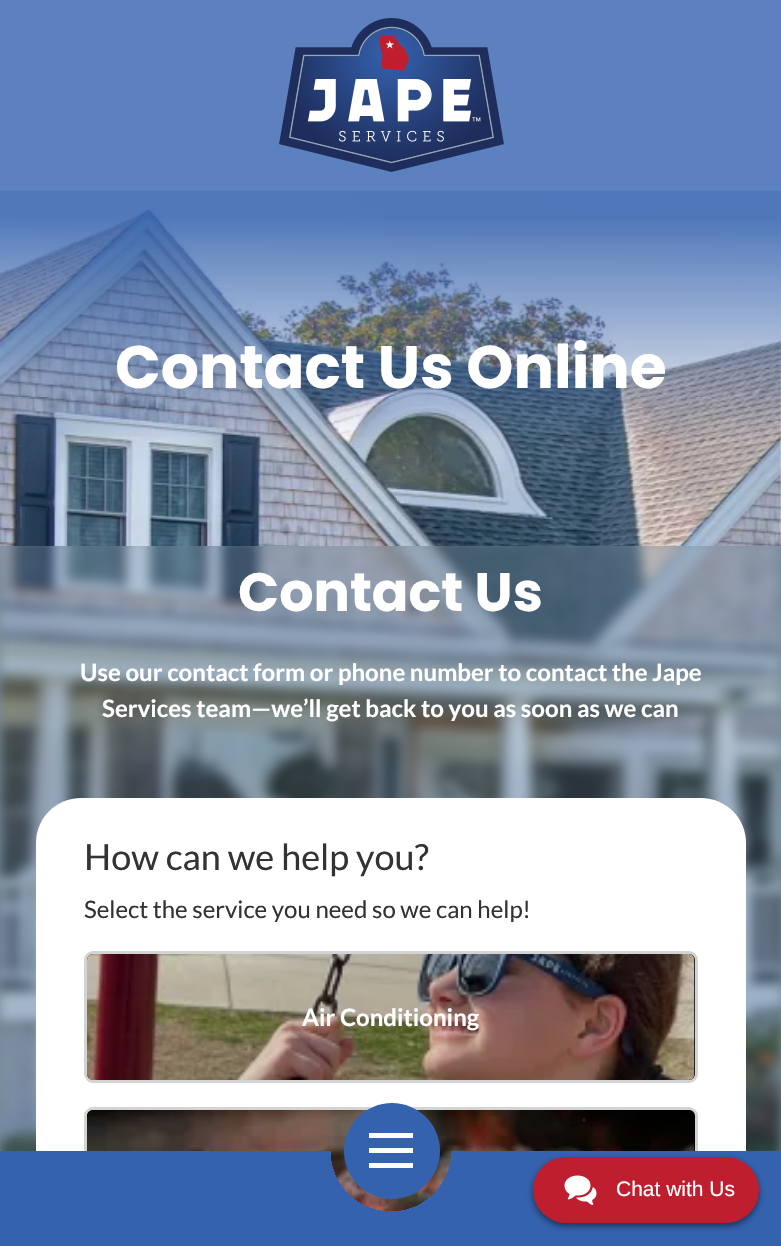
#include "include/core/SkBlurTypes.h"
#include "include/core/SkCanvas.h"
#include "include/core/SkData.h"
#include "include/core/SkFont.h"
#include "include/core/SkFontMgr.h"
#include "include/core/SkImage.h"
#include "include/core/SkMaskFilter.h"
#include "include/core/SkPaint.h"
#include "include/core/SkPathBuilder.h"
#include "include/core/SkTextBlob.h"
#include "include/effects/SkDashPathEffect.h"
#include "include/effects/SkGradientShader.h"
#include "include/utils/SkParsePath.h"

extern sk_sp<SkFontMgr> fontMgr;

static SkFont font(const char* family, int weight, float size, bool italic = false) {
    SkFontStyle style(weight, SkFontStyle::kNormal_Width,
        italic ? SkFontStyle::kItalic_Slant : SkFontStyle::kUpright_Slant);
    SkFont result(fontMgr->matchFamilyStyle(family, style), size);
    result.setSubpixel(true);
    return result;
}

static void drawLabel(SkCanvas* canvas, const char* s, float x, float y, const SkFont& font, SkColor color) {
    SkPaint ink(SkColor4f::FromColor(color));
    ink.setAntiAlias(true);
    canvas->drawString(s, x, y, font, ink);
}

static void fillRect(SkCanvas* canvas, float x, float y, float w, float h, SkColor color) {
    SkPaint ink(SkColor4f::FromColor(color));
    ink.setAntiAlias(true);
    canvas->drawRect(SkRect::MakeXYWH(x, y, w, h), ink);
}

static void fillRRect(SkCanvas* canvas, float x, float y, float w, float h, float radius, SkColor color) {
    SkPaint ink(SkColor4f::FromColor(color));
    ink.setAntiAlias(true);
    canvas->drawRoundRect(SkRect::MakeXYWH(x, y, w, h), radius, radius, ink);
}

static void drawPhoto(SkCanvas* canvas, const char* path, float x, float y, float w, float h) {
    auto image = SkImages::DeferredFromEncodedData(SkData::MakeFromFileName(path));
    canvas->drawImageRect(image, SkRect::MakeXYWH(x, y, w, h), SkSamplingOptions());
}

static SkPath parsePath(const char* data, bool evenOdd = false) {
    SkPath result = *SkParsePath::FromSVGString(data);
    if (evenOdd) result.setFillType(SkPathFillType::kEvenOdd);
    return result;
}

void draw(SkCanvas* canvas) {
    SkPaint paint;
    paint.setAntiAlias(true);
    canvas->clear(0xFFFFFFFF);
    drawPhoto(canvas, "assets/img2.png", 0, 190, 781, 356);
    fillRect(canvas, 0, 0, 781, 191, 0xCC3462AE);
    drawPhoto(canvas, "assets/img1.png", 279, 18, 225, 154);
    {
        const SkColor colors[] = {0xD93462AE, 0x003462AE};
        const float stops[] = {0.08f, 0.71f};
        const SkPoint ends[] = {{391, 189}, {391, 546}};
        paint.setShader(SkGradientShader::MakeLinear(ends, colors, stops, 2, SkTileMode::kClamp));
        paint.setAlpha(255);
    }
    canvas->drawRect(SkRect::MakeXYWH(0, 191, 781, 246), paint);
    SkFont font1 = font("Poppins", 700, 60);
    drawLabel(canvas, "Contact Us Online", 115, 388, font1, 0xFFFFFFFF);
    fillRect(canvas, 0, 546, 781, 605, 0xFF748A99);
    drawPhoto(canvas, "assets/img3.png", 0, 546, 781, 605);
    SkFont font2 = font("Poppins", 700, 54);
    drawLabel(canvas, "Contact Us", 238, 611, font2, 0xFFFFFFFF);
    SkFont font3 = font("Lato", 700, 24);
    drawLabel(canvas, "Use our contact form or phone number to contact the Jape", 80, 681, font3, 0xFFFFFFFF);
    drawLabel(canvas, "Services team—we’ll get back to you as soon as we can", 102, 717, font3, 0xFFFFFFFF);
    paint.setShader(nullptr);
    paint.setColor(0xFFFFFFFF);
    canvas->drawPath(parsePath("M81 798H701C726 798 746 818 746 843V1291H36V843C36 818 56 798 81 798Z"), paint);
    SkFont font4 = font("Lato", 400, 36);
    drawLabel(canvas, "How can we help you?", 84, 870, font4, 0xFF333333);
    SkFont font5 = font("Lato", 400, 24);
    drawLabel(canvas, "Select the service you need so we can help!", 84, 918, font5, 0xFF333333);
    paint.setColor(0xFF000000);
    canvas->drawRoundRect(SkRect::MakeXYWH(85.5f, 952.5f, 611, 129), 7.5f, 7.5f, paint);
    paint.setStroke(true);
    paint.setStrokeWidth(3);
    paint.setColor(0xFFD3D3D3);
    canvas->drawRoundRect(SkRect::MakeXYWH(85.5f, 952.5f, 611, 129), 7.5f, 7.5f, paint);
    drawPhoto(canvas, "assets/img4.png", 87, 954, 608, 126);
    drawLabel(canvas, "Air Conditioning", 302, 1026, font3, 0xFFFFFFFF);
    paint.setStroke(false);
    paint.setColor(0xFF000000);
    canvas->drawRoundRect(SkRect::MakeXYWH(85.5f, 1108.5f, 611, 129), 7.5f, 7.5f, paint);
    paint.setStroke(true);
    paint.setColor(0xFFD3D3D3);
    canvas->drawRoundRect(SkRect::MakeXYWH(85.5f, 1108.5f, 611, 129), 7.5f, 7.5f, paint);
    drawPhoto(canvas, "assets/img5.png", 87, 1110, 608, 101);
    paint.setStroke(false);
    {
        const SkColor colors[] = {0x003462AE, 0xFF3462AE};
        const float stops[] = {0.15f, 0.15f};
        paint.setShader(SkGradientShader::MakeRadial({391, 1151}, 402, colors, stops, 2, SkTileMode::kClamp));
        paint.setAlpha(255);
    }
    canvas->drawRect(SkRect::MakeXYWH(0, 1151, 781, 95), paint);
    paint.setShader(nullptr);
    paint.setColor(0xFF3462AE);
    canvas->drawCircle(392, 1151, 48, paint);
    fillRect(canvas, 369, 1148, 44, 5, 0xFFFFFFFF);
    fillRect(canvas, 369, 1133, 44, 5, 0xFFFFFFFF);
    fillRect(canvas, 369, 1163, 44, 5, 0xFFFFFFFF);
    paint.setColor(0x80000000);
    paint.setMaskFilter(SkMaskFilter::MakeBlur(kNormal_SkBlurStyle, 3));
    canvas->drawRoundRect(SkRect::MakeXYWH(533, 1160, 226, 66), 33, 33, paint);
    paint.setMaskFilter(nullptr);
    fillRRect(canvas, 533, 1157, 226, 66, 33, 0xFFBF1E2E);
    drawPhoto(canvas, "assets/img6.png", 564, 1175, 33, 30);
    SkFont font6 = font("Liberation Sans", 400, 21);
    drawLabel(canvas, "Chat with Us", 616, 1196, font6, 0xFFFFFFFF);
}
